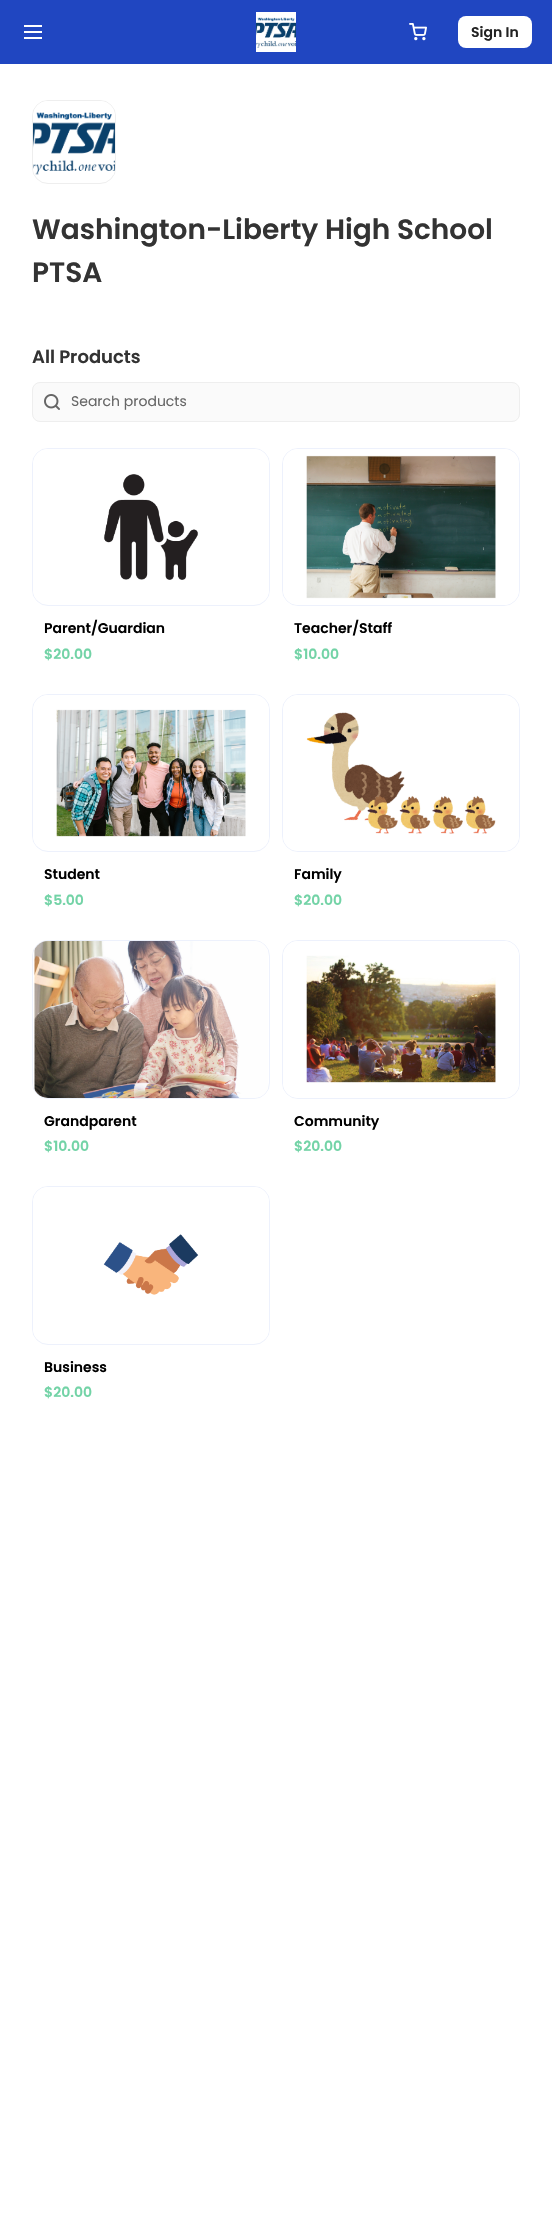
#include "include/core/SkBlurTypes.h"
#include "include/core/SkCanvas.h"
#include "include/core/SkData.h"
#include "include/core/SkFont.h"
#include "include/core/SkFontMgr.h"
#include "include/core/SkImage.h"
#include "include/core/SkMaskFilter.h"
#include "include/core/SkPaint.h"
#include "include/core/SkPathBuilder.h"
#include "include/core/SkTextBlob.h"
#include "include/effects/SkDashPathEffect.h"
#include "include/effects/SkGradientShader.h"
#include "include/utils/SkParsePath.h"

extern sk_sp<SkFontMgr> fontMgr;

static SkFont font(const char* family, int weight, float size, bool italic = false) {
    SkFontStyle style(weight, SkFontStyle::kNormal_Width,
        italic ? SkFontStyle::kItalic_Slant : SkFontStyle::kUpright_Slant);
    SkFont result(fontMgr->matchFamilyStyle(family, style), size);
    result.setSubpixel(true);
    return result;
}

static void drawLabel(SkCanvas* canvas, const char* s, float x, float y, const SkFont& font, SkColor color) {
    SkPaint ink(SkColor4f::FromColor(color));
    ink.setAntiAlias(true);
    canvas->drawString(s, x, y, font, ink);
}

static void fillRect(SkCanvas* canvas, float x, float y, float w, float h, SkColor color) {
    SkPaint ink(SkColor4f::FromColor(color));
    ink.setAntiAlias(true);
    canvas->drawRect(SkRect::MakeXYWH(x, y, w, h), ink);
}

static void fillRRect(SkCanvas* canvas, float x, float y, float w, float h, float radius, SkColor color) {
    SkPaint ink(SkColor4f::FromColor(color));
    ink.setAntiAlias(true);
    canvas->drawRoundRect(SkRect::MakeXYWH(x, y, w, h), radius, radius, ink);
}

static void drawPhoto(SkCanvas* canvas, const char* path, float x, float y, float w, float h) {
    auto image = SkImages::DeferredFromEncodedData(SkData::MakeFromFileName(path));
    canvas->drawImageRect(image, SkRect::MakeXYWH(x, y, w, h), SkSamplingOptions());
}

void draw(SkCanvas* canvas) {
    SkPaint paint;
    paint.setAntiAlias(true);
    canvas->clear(0xFFFFFFFF);
    fillRect(canvas, 0, 0, 552, 64, 0xFF2046C1);
    fillRect(canvas, 24, 31, 18, 2, 0xFFFFFFFF);
    fillRect(canvas, 24, 25, 18, 2, 0xFFFFFFFF);
    fillRect(canvas, 24, 37, 18, 2, 0xFFFFFFFF);
    drawPhoto(canvas, "assets/img1.png", 256, 12, 40, 40);
    drawPhoto(canvas, "assets/img2.png", 409, 23, 18, 18);
    fillRRect(canvas, 458, 16, 74, 32, 8, 0xFFFFFFFF);
    SkFont font1 = font("Poppins", 600, 14);
    drawLabel(canvas, "Sign In", 471, 37, font1, 0xFF222222);
    paint.setStroke(true);
    paint.setStrokeWidth(1);
    paint.setColor(0xFFEEEEEE);
    canvas->drawRoundRect(SkRect::MakeXYWH(32.5f, 100.5f, 83, 83), 15.5f, 15.5f, paint);
    drawPhoto(canvas, "assets/img3.png", 33, 101, 82, 74);
    SkFont font2 = font("Poppins", 600, 28);
    drawLabel(canvas, "Washington-Liberty High School", 32, 239, font2, 0xFF333333);
    drawLabel(canvas, "PTSA", 32, 282, font2, 0xFF333333);
    SkFont font3 = font("Poppins", 600, 18);
    drawLabel(canvas, "All Products", 32, 363, font3, 0xFF333333);
    paint.setStroke(false);
    paint.setColor(0xFFFAFAFA);
    canvas->drawRoundRect(SkRect::MakeXYWH(32.5f, 382.5f, 487, 39), 7.5f, 7.5f, paint);
    paint.setStroke(true);
    paint.setColor(0xFFEEEEEE);
    canvas->drawRoundRect(SkRect::MakeXYWH(32.5f, 382.5f, 487, 39), 7.5f, 7.5f, paint);
    drawPhoto(canvas, "assets/img4.png", 44, 394, 16, 16);
    SkFont font4 = font("Poppins", 400, 14);
    drawLabel(canvas, "Search products", 71, 406, font4, 0xFF666666);
    paint.setColor(0xFFEDF1FC);
    canvas->drawRoundRect(SkRect::MakeXYWH(32.5f, 448.5f, 237, 157), 15.5f, 15.5f, paint);
    drawPhoto(canvas, "assets/img5.png", 33, 449, 236, 151);
    drawLabel(canvas, "Parent/Guardian", 44, 633, font1, 0xFF000000);
    drawLabel(canvas, "$20.00", 44, 659, font1, 0xFF72D3A6);
    canvas->drawRoundRect(SkRect::MakeXYWH(282.5f, 448.5f, 237, 157), 15.5f, 15.5f, paint);
    drawPhoto(canvas, "assets/img6.png", 283, 449, 236, 156);
    drawLabel(canvas, "Teacher/Staff", 294, 633, font1, 0xFF000000);
    drawLabel(canvas, "$10.00", 294, 659, font1, 0xFF72D3A6);
    canvas->drawRoundRect(SkRect::MakeXYWH(32.5f, 694.5f, 237, 157), 15.5f, 15.5f, paint);
    drawPhoto(canvas, "assets/img7.png", 33, 695, 236, 151);
    drawLabel(canvas, "Student", 44, 879, font1, 0xFF000000);
    drawLabel(canvas, "$5.00", 44, 905, font1, 0xFF72D3A6);
    canvas->drawRoundRect(SkRect::MakeXYWH(282.5f, 694.5f, 237, 157), 15.5f, 15.5f, paint);
    drawPhoto(canvas, "assets/img8.png", 283, 695, 236, 156);
    drawLabel(canvas, "Family", 294, 879, font1, 0xFF000000);
    drawLabel(canvas, "$20.00", 294, 905, font1, 0xFF72D3A6);
    canvas->drawRoundRect(SkRect::MakeXYWH(32.5f, 940.5f, 237, 158), 15.5f, 15.5f, paint);
    drawPhoto(canvas, "assets/img9.png", 33, 941, 235, 157);
    drawLabel(canvas, "Grandparent", 44, 1126, font1, 0xFF000000);
    drawLabel(canvas, "$10.00", 44, 1151, font1, 0xFF72D3A6);
    canvas->drawRoundRect(SkRect::MakeXYWH(282.5f, 940.5f, 237, 158), 15.5f, 15.5f, paint);
    drawPhoto(canvas, "assets/img10.png", 283, 941, 236, 157);
    drawLabel(canvas, "Community", 294, 1126, font1, 0xFF000000);
    drawLabel(canvas, "$20.00", 294, 1151, font1, 0xFF72D3A6);
    canvas->drawRoundRect(SkRect::MakeXYWH(32.5f, 1186.5f, 237, 158), 15.5f, 15.5f, paint);
    drawPhoto(canvas, "assets/img11.png", 33, 1187, 236, 152);
    drawLabel(canvas, "Business", 44, 1372, font1, 0xFF000000);
    drawLabel(canvas, "$20.00", 44, 1397, font1, 0xFF72D3A6);
}
